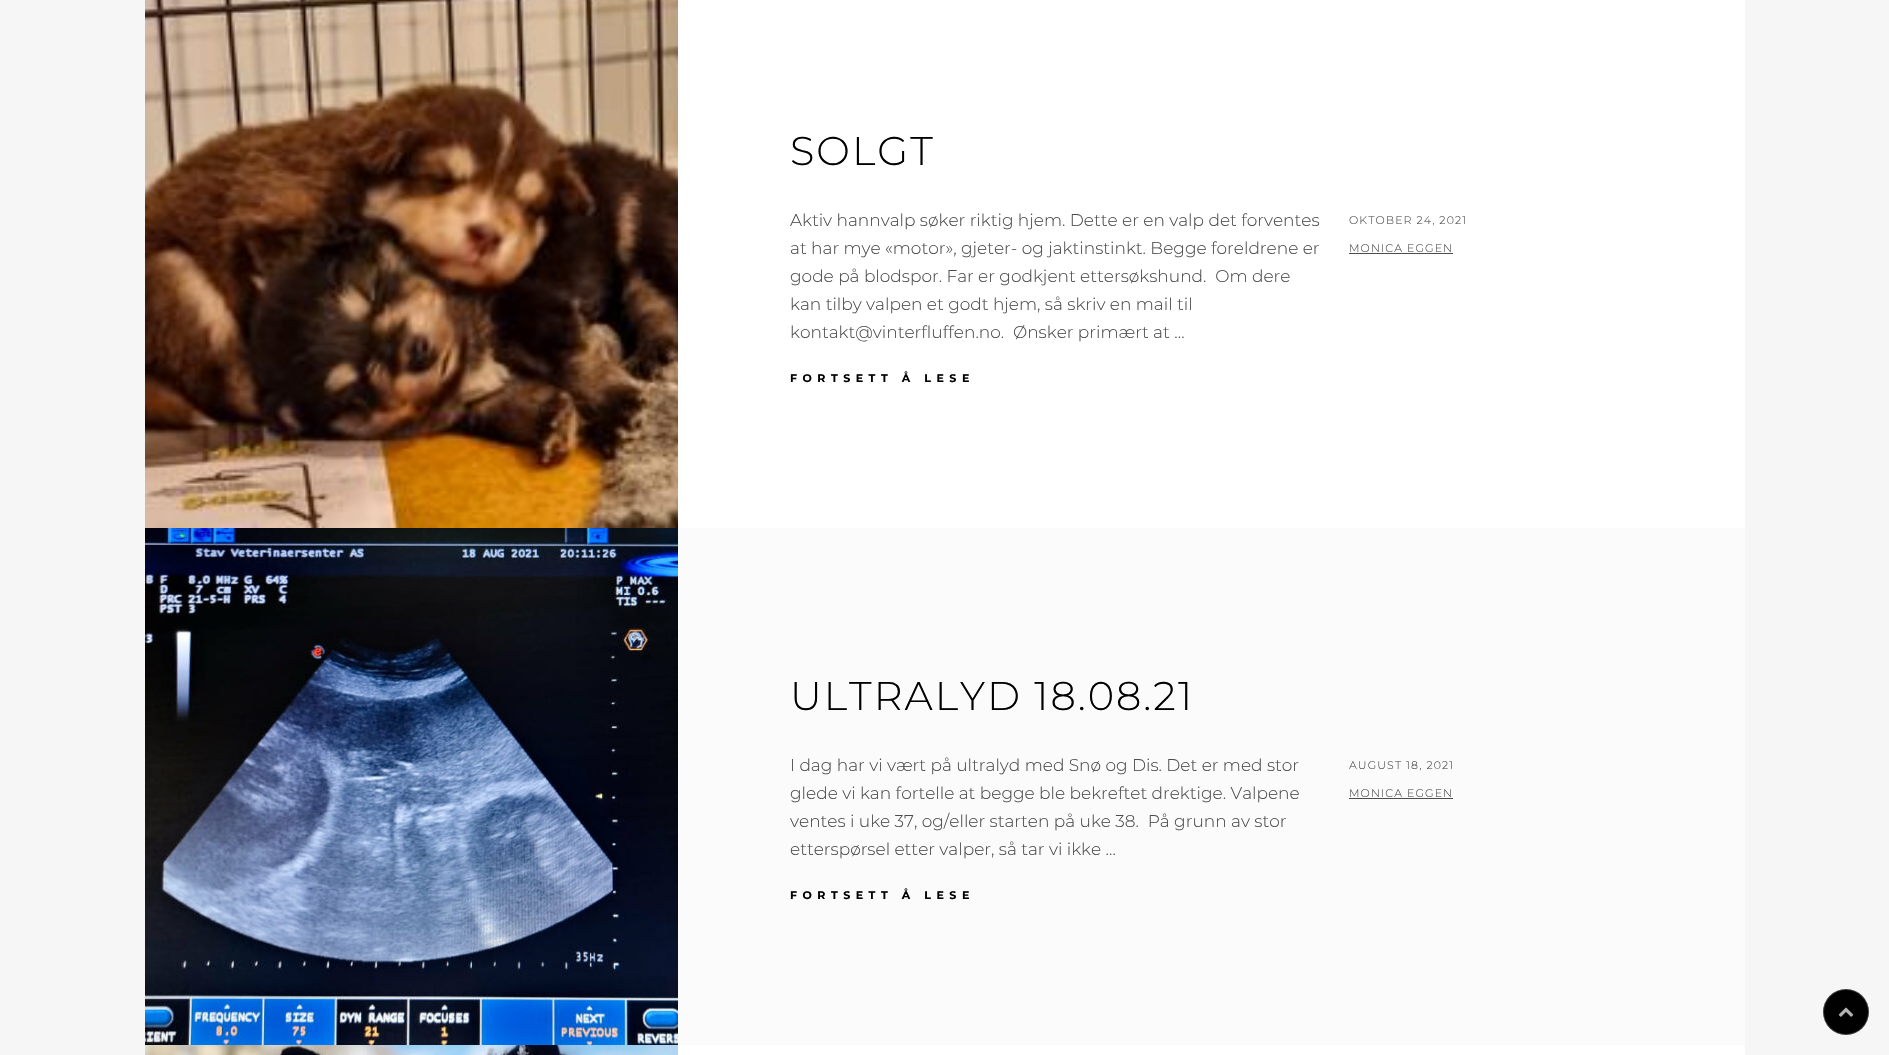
#include "include/core/SkBlurTypes.h"
#include "include/core/SkCanvas.h"
#include "include/core/SkData.h"
#include "include/core/SkFont.h"
#include "include/core/SkFontMgr.h"
#include "include/core/SkImage.h"
#include "include/core/SkMaskFilter.h"
#include "include/core/SkPaint.h"
#include "include/core/SkPathBuilder.h"
#include "include/core/SkTextBlob.h"
#include "include/effects/SkDashPathEffect.h"
#include "include/effects/SkGradientShader.h"
#include "include/utils/SkParsePath.h"

extern sk_sp<SkFontMgr> fontMgr;

static SkFont font(const char* family, int weight, float size, bool italic = false) {
    SkFontStyle style(weight, SkFontStyle::kNormal_Width,
        italic ? SkFontStyle::kItalic_Slant : SkFontStyle::kUpright_Slant);
    SkFont result(fontMgr->matchFamilyStyle(family, style), size);
    result.setSubpixel(true);
    return result;
}

static void drawLabel(SkCanvas* canvas, const char* s, float x, float y, const SkFont& font, SkColor color) {
    SkPaint ink(SkColor4f::FromColor(color));
    ink.setAntiAlias(true);
    canvas->drawString(s, x, y, font, ink);
}

static void drawTracked(SkCanvas* canvas, const char* s, float x, float y, const SkFont& font, const SkPaint& ink, float letter, float word) {
    std::vector<SkGlyphID> glyphs(font.countText(s, strlen(s), SkTextEncoding::kUTF8));
    std::vector<float> xs(glyphs.size());
    font.textToGlyphs(s, strlen(s), SkTextEncoding::kUTF8, glyphs);
    font.getXPos(glyphs, xs, x);
    float extra = 0;
    for (size_t i = 0; i < glyphs.size(); i++) {
        xs[i] += extra;
        extra += letter + word * (glyphs[i] == font.unicharToGlyph(' '));
    }
    canvas->drawTextBlob(SkTextBlob::MakeFromPosHGlyphs(glyphs, xs, y, font), 0, 0, ink);
}

static void fillRect(SkCanvas* canvas, float x, float y, float w, float h, SkColor color) {
    SkPaint ink(SkColor4f::FromColor(color));
    ink.setAntiAlias(true);
    canvas->drawRect(SkRect::MakeXYWH(x, y, w, h), ink);
}

static void drawPhoto(SkCanvas* canvas, const char* path, float x, float y, float w, float h) {
    auto image = SkImages::DeferredFromEncodedData(SkData::MakeFromFileName(path));
    canvas->drawImageRect(image, SkRect::MakeXYWH(x, y, w, h), SkSamplingOptions());
}

void draw(SkCanvas* canvas) {
    SkPaint paint;
    paint.setAntiAlias(true);
    canvas->clear(0xFFF6F6F6);
    fillRect(canvas, 678, 0, 1067, 1055, 0xFFFFFFFF);
    drawPhoto(canvas, "assets/img1.png", 145, 0, 533, 528);
    SkFont font1 = font("Montserrat", 300, 40);
    paint.setColor(0xFF000000);
    drawTracked(canvas, "SOLGT", 790, 165, font1, paint, 2, 0);
    SkFont font2 = font("Montserrat", 300, 17);
    drawLabel(canvas, "Aktiv hannvalp søker riktig hjem. Dette er en valp det forventes", 790, 226, font2, 0xFF4D4D4D);
    drawLabel(canvas, "at har mye «motor», gjeter- og jaktinstinkt. Begge foreldrene er", 790, 254, font2, 0xFF4D4D4D);
    drawLabel(canvas, "gode på blodspor. Far er godkjent ettersøkshund.  Om dere", 790, 282, font2, 0xFF4D4D4D);
    drawLabel(canvas, "kan tilby valpen et godt hjem, så skriv en mail til", 790, 310, font2, 0xFF4D4D4D);
    drawLabel(canvas, "kontakt@vinterfluffen.no.  Ønsker primært at …", 790, 338, font2, 0xFF4D4D4D);
    SkFont font3 = font("Montserrat", 700, 11);
    drawTracked(canvas, "FORTSETT Å LESE", 790, 382, font3, paint, 5.5f, 0);
    SkFont font4 = font("Montserrat", 300, 11);
    paint.setColor(0xFF4D4D4D);
    drawTracked(canvas, "OKTOBER 24, 2021", 1349, 224, font4, paint, 1.1f, 0);
    drawTracked(canvas, "MONICA EGGEN", 1349, 252, font4, paint, 1.1f, 0);
    fillRect(canvas, 1349, 253, 104, 1, 0xFF4D4D4D);
    drawPhoto(canvas, "assets/img2.png", 145, 528, 533, 517);
    fillRect(canvas, 678, 528, 1067, 517, 0xFFFBFBFB);
    paint.setColor(0xFF000000);
    drawTracked(canvas, "ULTRALYD 18.08.21", 790, 710, font1, paint, 2, 0);
    drawLabel(canvas, "I dag har vi vært på ultralyd med Snø og Dis. Det er med stor", 790, 771, font2, 0xFF4D4D4D);
    drawLabel(canvas, "glede vi kan fortelle at begge ble bekreftet drektige. Valpene", 790, 799, font2, 0xFF4D4D4D);
    drawLabel(canvas, "ventes i uke 37, og/eller starten på uke 38.  På grunn av stor", 790, 827, font2, 0xFF4D4D4D);
    drawLabel(canvas, "etterspørsel etter valper, så tar vi ikke …", 790, 855, font2, 0xFF4D4D4D);
    drawTracked(canvas, "FORTSETT Å LESE", 790, 899, font3, paint, 5.5f, 0);
    paint.setColor(0xFF4D4D4D);
    drawTracked(canvas, "AUGUST 18, 2021", 1349, 769, font4, paint, 1.1f, 0);
    drawTracked(canvas, "MONICA EGGEN", 1349, 797, font4, paint, 1.1f, 0);
    fillRect(canvas, 1349, 798, 104, 1, 0xFF4B4B4B);
    drawPhoto(canvas, "assets/img3.png", 145, 1045, 533, 10);
    paint.setColor(0xFF010101);
    canvas->drawCircle(1846, 1012, 23, paint);
    paint.setStroke(true);
    paint.setStrokeWidth(1);
    paint.setColor(0x40FFFFFF);
    canvas->drawCircle(1846, 1012, 22.5f, paint);
    drawPhoto(canvas, "assets/img4.png", 1838, 1007, 16, 10);
}
